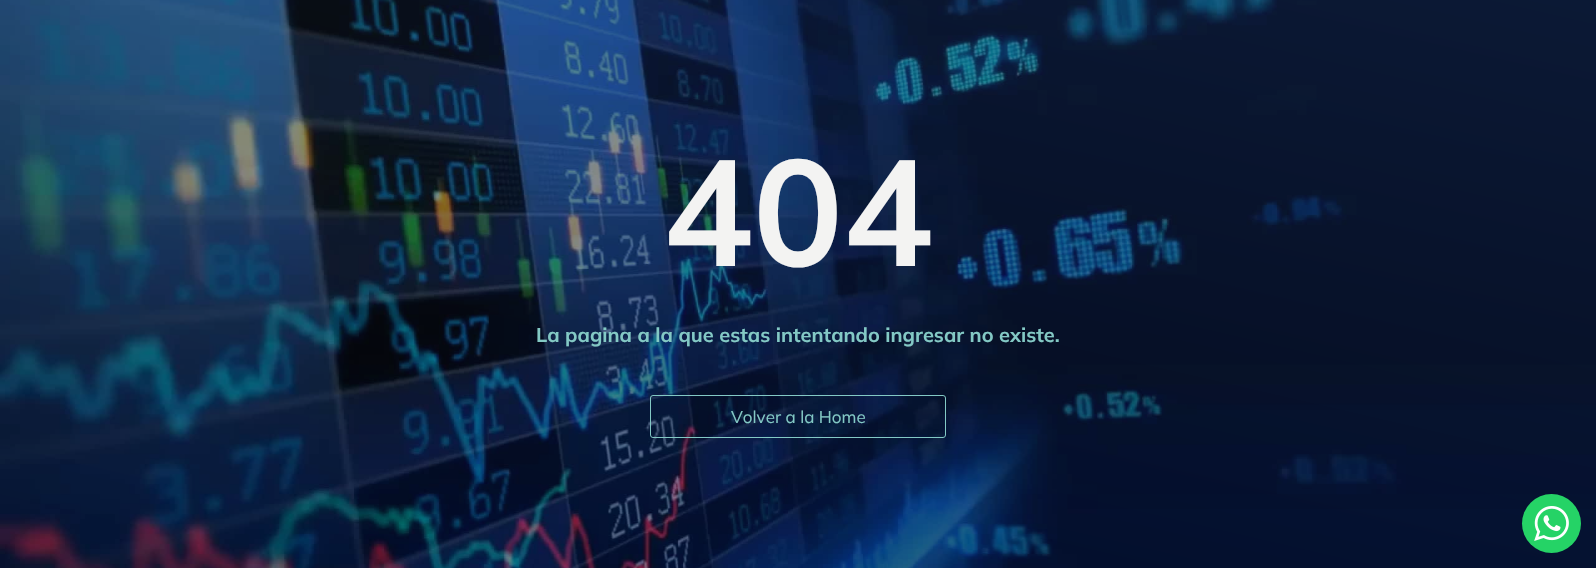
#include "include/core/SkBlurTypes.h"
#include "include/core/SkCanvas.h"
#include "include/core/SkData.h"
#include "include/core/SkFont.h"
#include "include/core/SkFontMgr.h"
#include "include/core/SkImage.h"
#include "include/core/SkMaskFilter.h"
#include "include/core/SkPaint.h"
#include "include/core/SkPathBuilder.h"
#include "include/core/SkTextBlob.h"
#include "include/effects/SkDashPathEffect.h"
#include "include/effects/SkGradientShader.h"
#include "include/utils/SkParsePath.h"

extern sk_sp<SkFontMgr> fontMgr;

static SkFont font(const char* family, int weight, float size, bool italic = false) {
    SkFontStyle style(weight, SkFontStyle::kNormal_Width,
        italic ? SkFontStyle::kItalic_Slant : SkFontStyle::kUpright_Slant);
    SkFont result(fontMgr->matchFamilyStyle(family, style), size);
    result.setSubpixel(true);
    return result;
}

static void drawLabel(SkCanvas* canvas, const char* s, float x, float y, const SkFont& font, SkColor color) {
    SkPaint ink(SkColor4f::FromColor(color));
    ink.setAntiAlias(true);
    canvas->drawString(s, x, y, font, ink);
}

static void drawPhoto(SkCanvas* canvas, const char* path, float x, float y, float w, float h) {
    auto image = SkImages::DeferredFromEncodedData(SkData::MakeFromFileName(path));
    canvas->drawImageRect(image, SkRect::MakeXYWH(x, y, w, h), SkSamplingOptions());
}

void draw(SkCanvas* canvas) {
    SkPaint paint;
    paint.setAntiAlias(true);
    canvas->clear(0xFFFFFFFF);
    drawPhoto(canvas, "assets/img1.png", 0, 0, 1596, 568);
    SkFont font1 = font("Mulish", 700, 150);
    drawLabel(canvas, "404", 663, 266, font1, 0xFFF3F3F2);
    SkFont font2 = font("Mulish", 700, 20);
    drawLabel(canvas, "La pagina a la que estas intentando ingresar no existe.", 536, 342, font2, 0xFF83C9C5);
    paint.setStroke(true);
    paint.setStrokeWidth(1);
    paint.setColor(0xFF83C9C5);
    canvas->drawRoundRect(SkRect::MakeXYWH(650.5f, 395.5f, 295, 42), 2.5f, 2.5f, paint);
    SkFont font3 = font("Mulish", 400, 17);
    drawLabel(canvas, "Volver a la Home", 731, 423, font3, 0xFF83C9C5);
    paint.setStroke(false);
    paint.setColor(0xFF25D366);
    canvas->drawCircle(1551.5f, 523.5f, 29.5f, paint);
    drawPhoto(canvas, "assets/img2.png", 1534, 506, 35, 35);
}
